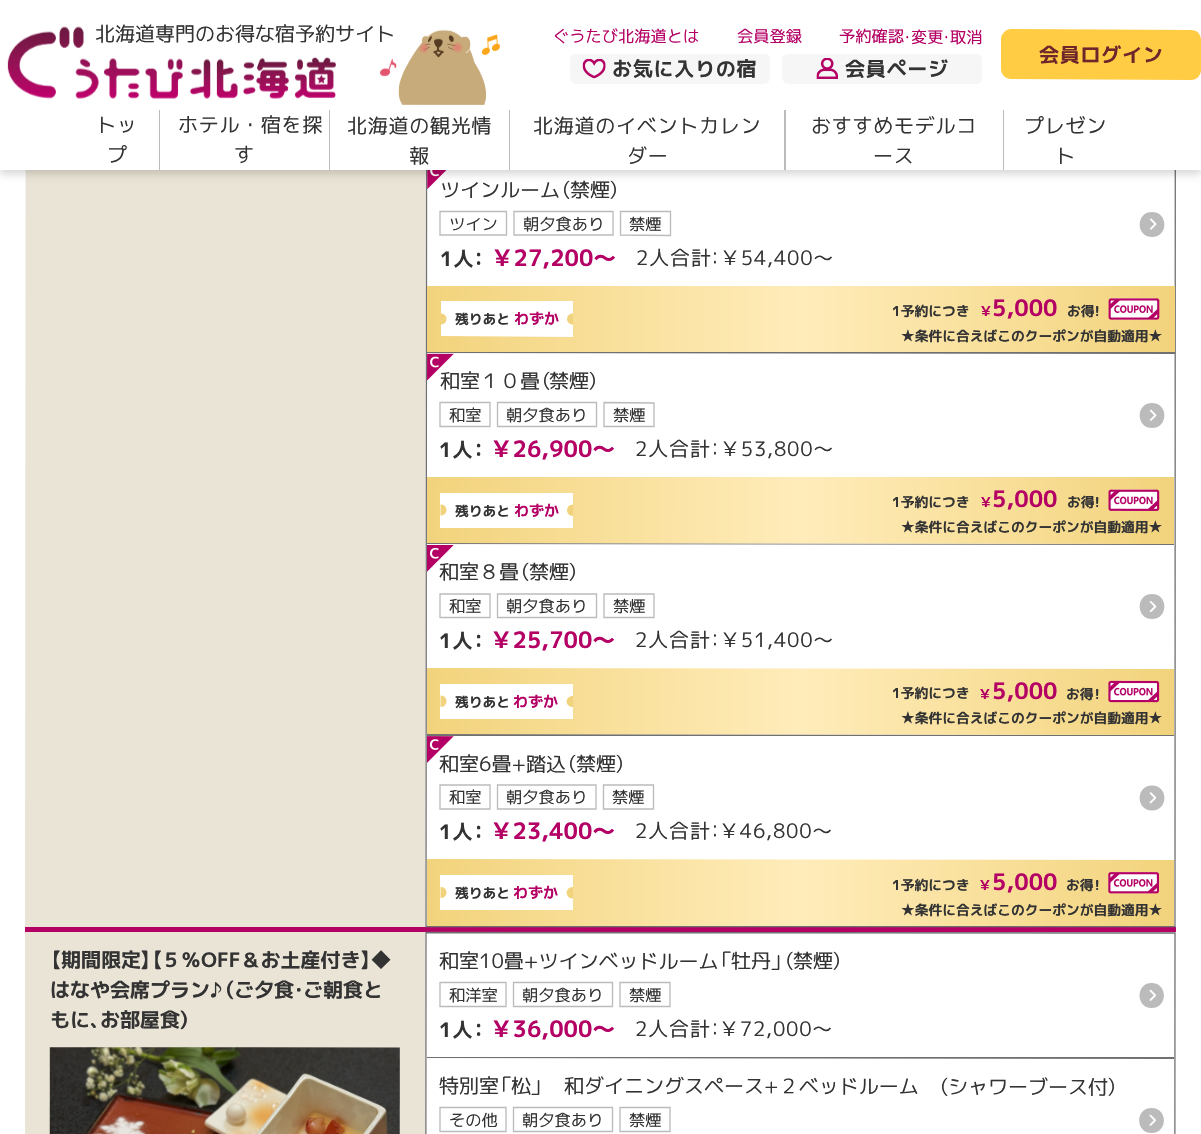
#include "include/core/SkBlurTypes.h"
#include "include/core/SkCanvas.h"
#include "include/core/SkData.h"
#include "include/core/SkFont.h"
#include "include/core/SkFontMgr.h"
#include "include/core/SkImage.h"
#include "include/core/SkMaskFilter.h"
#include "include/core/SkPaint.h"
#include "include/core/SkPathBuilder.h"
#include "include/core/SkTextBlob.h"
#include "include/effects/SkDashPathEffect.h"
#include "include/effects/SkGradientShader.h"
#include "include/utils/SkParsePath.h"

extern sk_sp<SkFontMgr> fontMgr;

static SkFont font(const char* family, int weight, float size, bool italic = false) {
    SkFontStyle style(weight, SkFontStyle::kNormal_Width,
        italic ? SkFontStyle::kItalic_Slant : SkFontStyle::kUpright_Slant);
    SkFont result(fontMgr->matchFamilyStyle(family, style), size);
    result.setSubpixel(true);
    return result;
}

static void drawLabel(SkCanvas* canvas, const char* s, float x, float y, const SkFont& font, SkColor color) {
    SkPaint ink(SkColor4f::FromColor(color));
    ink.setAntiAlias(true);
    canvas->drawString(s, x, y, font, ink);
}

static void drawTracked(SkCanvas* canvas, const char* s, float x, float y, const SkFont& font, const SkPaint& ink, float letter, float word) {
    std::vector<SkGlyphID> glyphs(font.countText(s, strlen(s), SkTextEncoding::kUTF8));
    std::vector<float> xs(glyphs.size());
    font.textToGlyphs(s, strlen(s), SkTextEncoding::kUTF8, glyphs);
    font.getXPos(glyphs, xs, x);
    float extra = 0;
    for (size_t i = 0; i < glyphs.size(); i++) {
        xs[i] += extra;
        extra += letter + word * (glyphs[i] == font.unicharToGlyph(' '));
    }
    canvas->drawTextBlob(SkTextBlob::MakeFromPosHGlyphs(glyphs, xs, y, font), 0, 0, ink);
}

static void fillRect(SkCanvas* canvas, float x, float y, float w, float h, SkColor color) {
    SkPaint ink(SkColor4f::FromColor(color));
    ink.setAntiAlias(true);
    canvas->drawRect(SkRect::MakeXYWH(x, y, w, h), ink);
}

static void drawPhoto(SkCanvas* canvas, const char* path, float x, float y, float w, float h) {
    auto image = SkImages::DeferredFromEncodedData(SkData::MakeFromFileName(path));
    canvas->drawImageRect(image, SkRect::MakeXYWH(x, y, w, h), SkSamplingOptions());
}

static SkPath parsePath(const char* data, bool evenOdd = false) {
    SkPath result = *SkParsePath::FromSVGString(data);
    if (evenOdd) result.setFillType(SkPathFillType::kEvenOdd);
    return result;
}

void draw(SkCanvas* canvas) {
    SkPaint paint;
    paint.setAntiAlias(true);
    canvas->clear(0xFFFFFFFF);
    paint.setColor(0xFFEAE4D6);
    canvas->drawPath(parsePath("M26-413H426L425 927H25Z"), paint);
    fillRect(canvas, 25, 927, 1151, 5, 0xFFB40064);
    paint.setStroke(true);
    paint.setStrokeWidth(1.3f);
    paint.setColor(0xFF707070);
    canvas->drawPath(parsePath("M427-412.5L1175.5-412L1175 926.5H426Z"), paint);
    SkFont font1 = font("M PLUS 1p", 400, 20);
    canvas->save();
    canvas->rotate(0.1f, 440, 197);
    drawLabel(canvas, "ツインルーム", 440, 197, font1, 0xFF333333);
    canvas->restore();
    drawPhoto(canvas, "assets/img5.png", 427, 170, 20, 19);
    paint.setStroke(false);
    paint.setColor(0x29000000);
    paint.setMaskFilter(SkMaskFilter::MakeBlur(kNormal_SkBlurStyle, 4));
    canvas->drawRect(SkRect::MakeXYWH(0, 4, 1201, 170), paint);
    paint.setMaskFilter(nullptr);
    fillRect(canvas, 0, 0, 1201, 170, 0xFFFFFFFF);
    drawPhoto(canvas, "assets/img1.png", 7, 26, 329, 73);
    drawPhoto(canvas, "assets/img2.png", 380, 29, 120, 76);
    drawLabel(canvas, "北海道専門のお得な宿予約サイト", 95, 41, font1, 0xFF333333);
    SkFont font2 = font("M PLUS 1p", 400, 16.25f);
    drawLabel(canvas, "ぐうたび北海道とは", 553, 42, font2, 0xFFB40064);
    drawLabel(canvas, "会員登録", 737, 42, font2, 0xFFB40064);
    drawLabel(canvas, "予約確認", 839, 42, font2, 0xFFB40064);
    SkFont font3 = font("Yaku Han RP", 400, 16.25f);
    drawLabel(canvas, "・", 904, 43, font3, 0xFFB40064);
    drawLabel(canvas, "変更", 911, 43, font2, 0xFFB40064);
    drawLabel(canvas, "・", 943, 43, font3, 0xFFB40064);
    drawLabel(canvas, "取消", 950, 43, font2, 0xFFB40064);
    paint.setColor(0xFFF6F6F6);
    canvas->drawPath(parsePath("M576 54H764C767 54 770 56 770 60V77C770 81 767 84 764 84H576C573 84 570 81 570 77V60C570 56 573 54 576 54Z"), paint);
    drawPhoto(canvas, "assets/img3.png", 582, 58, 24, 21);
    SkFont font4 = font("M PLUS 1p", 700, 20);
    paint.setColor(0xFF333333);
    drawTracked(canvas, "お気に入りの宿", 612, 76, font4, paint, 0.75f, 0);
    paint.setColor(0xFFF6F6F6);
    canvas->drawPath(parsePath("M789 54H976C980 54 982 57 982 60V78C982 81 980 84 976 84H789C785 84 782 81 782 77V60C782 56 785 54 789 54Z"), paint);
    drawPhoto(canvas, "assets/img4.png", 816, 58, 22, 21);
    paint.setColor(0xFF333333);
    drawTracked(canvas, "会員ページ", 845, 76, font4, paint, 0.75f, 0);
    paint.setColor(0xFFFFCC43);
    canvas->drawPath(parsePath("M1011 29L1191 30C1197 30 1201 34 1201 40V70C1201 75 1197 80 1191 80L1011 79C1006 79 1001 75 1001 69V39C1001 34 1006 29 1011 29Z"), paint);
    paint.setColor(0xFF6D262A);
    drawTracked(canvas, "会員ログイン", 1039, 62, font4, paint, 0.75f, 0);
    fillRect(canvas, 159, 110, 1, 60, 0xFFBBBBBB);
    paint.setColor(0xFF333333);
    drawTracked(canvas, "トッ", 96, 132, font1, paint, 0.75f, 0);
    drawTracked(canvas, "プ", 107, 162, font1, paint, 0.75f, 0);
    fillRect(canvas, 329, 110, 1, 60, 0xFFBBBBBB);
    drawTracked(canvas, "ホテル・宿を探", 178, 132, font1, paint, 0.75f, 0);
    drawTracked(canvas, "す", 234, 162, font1, paint, 0.75f, 0);
    fillRect(canvas, 509, 110, 1, 60, 0xFFBBBBBB);
    drawTracked(canvas, "北海道の観光情", 347, 133, font1, paint, 0.75f, 0);
    drawTracked(canvas, "報", 409, 163, font1, paint, 0.75f, 0);
    fillRect(canvas, 784, 110, 2, 60, 0xFFBBBBBB);
    drawTracked(canvas, "北海道のイベントカレン", 533, 133, font1, paint, 0.75f, 0);
    drawTracked(canvas, "ダー", 627, 163, font1, paint, 0.75f, 0);
    fillRect(canvas, 1003, 110, 1, 60, 0xFFBBBBBB);
    drawTracked(canvas, "おすすめモデルコ", 811, 133, font1, paint, 0.75f, 0);
    drawTracked(canvas, "ース", 873, 163, font1, paint, 0.75f, 0);
    drawTracked(canvas, "プレゼン", 1024, 133, font1, paint, 0.75f, 0);
    drawTracked(canvas, "ト", 1055, 163, font1, paint, 0.75f, 0);
    paint.setColor(0xFF707070);
    canvas->drawPath(parsePath("M427 352H1175V354L427 353Z"), paint);
    SkFont font5 = font("Yaku Han RP", 400, 20);
    canvas->save();
    canvas->rotate(0.1f, 560, 197);
    drawLabel(canvas, "（", 560, 197, font5, 0xFF333333);
    canvas->restore();
    canvas->save();
    canvas->rotate(0.1f, 570, 197);
    drawLabel(canvas, "禁煙", 570, 197, font1, 0xFF333333);
    canvas->restore();
    canvas->save();
    canvas->rotate(0.1f, 610, 197);
    drawLabel(canvas, "）", 610, 197, font5, 0xFF333333);
    canvas->restore();
    paint.setStroke(true);
    paint.setColor(0xFFBBBBBB);
    canvas->drawPath(parsePath("M440 211.5H506.5V235H440Z"), paint);
    drawLabel(canvas, "ツイン", 449, 230, font2, 0xFF333333);
    canvas->drawPath(parsePath("M514 211.5H613V235H514Z"), paint);
    drawLabel(canvas, "朝夕食あり", 523, 230, font2, 0xFF333333);
    canvas->drawPath(parsePath("M620.5 211.5H670.5V235.5L620.5 235Z"), paint);
    drawLabel(canvas, "禁煙", 629, 230, font2, 0xFF333333);
    paint.setStroke(false);
    paint.setColor(0xFF333333);
    drawTracked(canvas, "1人", 440, 266, font4, paint, 0.75f, 0);
    SkFont font6 = font("Yaku Han RP", 700, 20);
    drawTracked(canvas, "：", 474, 266, font6, paint, 0.75f, 0);
    SkFont font7 = font("M PLUS 1p", 700, 22.5f);
    drawLabel(canvas, "￥27,200～", 491, 266, font7, 0xFFB40064);
    drawTracked(canvas, "2人合計", 636, 265, font1, paint, 0.75f, 0);
    drawTracked(canvas, "：", 711, 265, font5, paint, 0.75f, 0);
    drawTracked(canvas, "￥54,400～", 720, 265, font1, paint, 0.75f, 0);
    paint.setColor(0xFFBBBBBB);
    canvas->drawPath(parsePath("M1152 212C1168.5 212 1168.5 237 1152 237C1135.5 237 1135.5 212 1152 212Z"), paint);
    drawPhoto(canvas, "assets/img6.png", 1150, 218, 7, 12);
    {
        const SkColor colors[] = {0xFFF2D37C, 0xFFFFECBA, 0xFFF2D37C};
        const float stops[] = {0, 0.5f, 1};
        const SkPoint ends[] = {{427, 319}, {1175, 319}};
        paint.setShader(SkGradientShader::MakeLinear(ends, colors, stops, 3, SkTileMode::kClamp));
        paint.setAlpha(255);
    }
    canvas->drawRect(SkRect::MakeXYWH(427, 286, 748, 66), paint);
    paint.setShader(nullptr);
    paint.setColor(0xFFFFFFFF);
    canvas->drawPath(parsePath("M441 301H573V337L441 336Z"), paint);
    paint.setColor(0xFFF2D37D);
    canvas->drawPath(parsePath("M440.5 313.5C448.5 313.5 448.5 324.5 440.5 324.5Z"), paint);
    SkFont font8 = font("M PLUS 1p", 700, 13.75f);
    drawLabel(canvas, "残りあと", 455, 324, font8, 0xFF333333);
    SkFont font9 = font("M PLUS 1p", 700, 15);
    drawLabel(canvas, "わずか", 514, 324, font9, 0xFFB40064);
    canvas->drawPath(parsePath("M573 313.5V324.5C565 324.5 565 313.5 573 313.5Z"), paint);
    drawLabel(canvas, "1予約につき", 892, 316, font8, 0xFF333333);
    drawLabel(canvas, "￥", 979, 316, font8, 0xFFB40064);
    drawLabel(canvas, "5,000", 992, 316, font7, 0xFFB40064);
    drawLabel(canvas, "お得", 1067, 316, font8, 0xFF333333);
    SkFont font10 = font("Yaku Han RP", 700, 13.75f);
    drawLabel(canvas, "！", 1094, 316, font10, 0xFF333333);
    drawPhoto(canvas, "assets/img7.png", 1108, 298, 52, 22);
    drawLabel(canvas, "★条件に合えばこのクーポンが自動適用★", 901, 341, font8, 0xFF333333);
    paint.setColor(0xFF707070);
    canvas->drawPath(parsePath("M427 543L1174 544V545L427 544Z"), paint);
    canvas->save();
    canvas->rotate(0.1f, 440, 388);
    drawLabel(canvas, "和室１０畳", 440, 388, font1, 0xFF333333);
    canvas->restore();
    drawPhoto(canvas, "assets/img8.png", 427, 353, 27, 28);
    canvas->save();
    canvas->rotate(0.1f, 540, 388);
    drawLabel(canvas, "（", 540, 388, font5, 0xFF333333);
    canvas->restore();
    canvas->save();
    canvas->rotate(0.1f, 549, 388);
    drawLabel(canvas, "禁煙", 549, 388, font1, 0xFF333333);
    canvas->restore();
    canvas->save();
    canvas->rotate(0.1f, 589, 388);
    drawLabel(canvas, "）", 589, 388, font5, 0xFF333333);
    canvas->restore();
    paint.setStroke(true);
    paint.setColor(0xFFBBBBBB);
    canvas->drawPath(parsePath("M440 402.5H490V426.5H440Z"), paint);
    drawLabel(canvas, "和室", 449, 421, font2, 0xFF333333);
    canvas->drawPath(parsePath("M497.5 402.5H596.5V426.5H497.5Z"), paint);
    drawLabel(canvas, "朝夕食あり", 506, 421, font2, 0xFF333333);
    canvas->drawPath(parsePath("M604 402.5L654 403V426.5H604Z"), paint);
    drawLabel(canvas, "禁煙", 613, 421, font2, 0xFF333333);
    paint.setStroke(false);
    paint.setColor(0xFF333333);
    drawTracked(canvas, "1人", 439, 457, font4, paint, 0.75f, 0);
    drawTracked(canvas, "：", 474, 457, font6, paint, 0.75f, 0);
    drawLabel(canvas, "￥26,900～", 490, 457, font7, 0xFFB40064);
    drawTracked(canvas, "2人合計", 635, 456, font1, paint, 0.75f, 0);
    drawTracked(canvas, "：", 711, 456, font5, paint, 0.75f, 0);
    drawTracked(canvas, "￥53,800～", 720, 456, font1, paint, 0.75f, 0);
    paint.setColor(0xFFBBBBBB);
    canvas->drawPath(parsePath("M1152 403C1168.5 403 1168.5 428 1152 428C1135.5 428 1135.5 403 1152 403Z"), paint);
    drawPhoto(canvas, "assets/img9.png", 1149, 409, 8, 12);
    {
        const SkColor colors[] = {0xFFF2D37C, 0xFFFFECBA, 0xFFF2D37C};
        const float stops[] = {0, 0.5f, 1};
        const SkPoint ends[] = {{427, 510}, {1174, 511}};
        paint.setShader(SkGradientShader::MakeLinear(ends, colors, stops, 3, SkTileMode::kClamp));
        paint.setAlpha(255);
    }
    canvas->drawPath(parsePath("M427 477H1174V544L427 543Z"), paint);
    fillRect(canvas, 440, 493, 133, 35, 0xFFFFFFFF);
    paint.setShader(nullptr);
    paint.setColor(0xFFF2D37D);
    canvas->drawPath(parsePath("M440.5 504.5C448.5 504.5 448.5 515.5 440.5 515.5Z"), paint);
    drawLabel(canvas, "残りあと", 455, 516, font8, 0xFF333333);
    drawLabel(canvas, "わずか", 514, 516, font9, 0xFFB40064);
    canvas->drawPath(parsePath("M573 504.5V516C565 516 565 504.5 573 504.5Z"), paint);
    drawLabel(canvas, "1予約につき", 892, 507, font8, 0xFF333333);
    drawLabel(canvas, "￥", 979, 507, font8, 0xFFB40064);
    drawLabel(canvas, "5,000", 992, 507, font7, 0xFFB40064);
    drawLabel(canvas, "お得", 1067, 507, font8, 0xFF333333);
    drawLabel(canvas, "！", 1094, 507, font10, 0xFF333333);
    drawPhoto(canvas, "assets/img10.png", 1108, 489, 52, 22);
    drawLabel(canvas, "★条件に合えばこのクーポンが自動適用★", 901, 532, font8, 0xFF333333);
    paint.setColor(0xFF707070);
    canvas->drawPath(parsePath("M427 734L1174 735V736H427Z"), paint);
    canvas->save();
    canvas->rotate(0.1f, 439, 579);
    drawLabel(canvas, "和室８畳", 439, 579, font1, 0xFF333333);
    canvas->restore();
    drawPhoto(canvas, "assets/img11.png", 427, 545, 27, 27);
    canvas->save();
    canvas->rotate(0.1f, 519, 579);
    drawLabel(canvas, "（", 519, 579, font5, 0xFF333333);
    canvas->restore();
    canvas->save();
    canvas->rotate(0.1f, 529, 579);
    drawLabel(canvas, "禁煙", 529, 579, font1, 0xFF333333);
    canvas->restore();
    canvas->save();
    canvas->rotate(0.1f, 569, 579);
    drawLabel(canvas, "）", 569, 579, font5, 0xFF333333);
    canvas->restore();
    paint.setStroke(true);
    paint.setColor(0xFFBBBBBB);
    canvas->drawPath(parsePath("M440 594H490V617.5H440Z"), paint);
    drawLabel(canvas, "和室", 449, 612, font2, 0xFF333333);
    canvas->drawPath(parsePath("M497.5 594H596.5V617.5H497.5Z"), paint);
    drawLabel(canvas, "朝夕食あり", 506, 612, font2, 0xFF333333);
    canvas->drawPath(parsePath("M604 594H654V617.5H604Z"), paint);
    drawLabel(canvas, "禁煙", 613, 612, font2, 0xFF333333);
    paint.setStroke(false);
    paint.setColor(0xFF333333);
    drawTracked(canvas, "1人", 439, 648, font4, paint, 0.75f, 0);
    drawTracked(canvas, "：", 474, 648, font6, paint, 0.75f, 0);
    drawLabel(canvas, "￥25,700～", 490, 648, font7, 0xFFB40064);
    drawTracked(canvas, "2人合計", 635, 647, font1, paint, 0.75f, 0);
    drawTracked(canvas, "：", 711, 647, font5, paint, 0.75f, 0);
    drawTracked(canvas, "￥51,400～", 720, 647, font1, paint, 0.75f, 0);
    paint.setColor(0xFFBBBBBB);
    canvas->drawPath(parsePath("M1152 594C1168.5 594 1168.5 619 1152 619C1135.5 619 1135.5 594 1152 594Z"), paint);
    drawPhoto(canvas, "assets/img12.png", 1149, 601, 8, 12);
    {
        const SkColor colors[] = {0xFFF2D37C, 0xFFFFECBA, 0xFFF2D37C};
        const float stops[] = {0, 0.5f, 1};
        const SkPoint ends[] = {{427, 701}, {1174, 702}};
        paint.setShader(SkGradientShader::MakeLinear(ends, colors, stops, 3, SkTileMode::kClamp));
        paint.setAlpha(255);
    }
    canvas->drawPath(parsePath("M427 668L1174 669V735L427 734Z"), paint);
    fillRect(canvas, 440, 684, 133, 35, 0xFFFFFFFF);
    paint.setShader(nullptr);
    paint.setColor(0xFFF2D37D);
    canvas->drawPath(parsePath("M440.5 695.5C448.5 695.5 448.5 707 440.5 707Z"), paint);
    drawLabel(canvas, "残りあと", 455, 707, font8, 0xFF333333);
    drawLabel(canvas, "わずか", 513, 707, font9, 0xFFB40064);
    canvas->drawPath(parsePath("M573 696V707C564.5 707 564.5 696 573 696Z"), paint);
    drawLabel(canvas, "1予約につき", 892, 698, font8, 0xFF333333);
    drawLabel(canvas, "￥", 978, 699, font8, 0xFFB40064);
    drawLabel(canvas, "5,000", 992, 699, font7, 0xFFB40064);
    drawLabel(canvas, "お得", 1066, 699, font8, 0xFF333333);
    drawLabel(canvas, "！", 1094, 699, font10, 0xFF333333);
    drawPhoto(canvas, "assets/img13.png", 1108, 680, 52, 23);
    drawLabel(canvas, "★条件に合えばこのクーポンが自動適用★", 901, 723, font8, 0xFF333333);
    canvas->save();
    canvas->rotate(0.1f, 439, 771);
    drawLabel(canvas, "和室6畳+踏込", 439, 771, font1, 0xFF333333);
    canvas->restore();
    drawPhoto(canvas, "assets/img14.png", 427, 736, 27, 27);
    canvas->save();
    canvas->rotate(0.1f, 566, 771);
    drawLabel(canvas, "（", 566, 771, font5, 0xFF333333);
    canvas->restore();
    canvas->save();
    canvas->rotate(0.1f, 576, 771);
    drawLabel(canvas, "禁煙", 576, 771, font1, 0xFF333333);
    canvas->restore();
    canvas->save();
    canvas->rotate(0.1f, 616, 771);
    drawLabel(canvas, "）", 616, 771, font5, 0xFF333333);
    canvas->restore();
    paint.setStroke(true);
    paint.setColor(0xFFBBBBBB);
    canvas->drawPath(parsePath("M440 785H490V809H440Z"), paint);
    drawLabel(canvas, "和室", 449, 803, font2, 0xFF333333);
    canvas->drawPath(parsePath("M497.5 785H596V809H497.5Z"), paint);
    drawLabel(canvas, "朝夕食あり", 506, 803, font2, 0xFF333333);
    canvas->drawPath(parsePath("M603.5 785H653.5V809H603.5Z"), paint);
    drawLabel(canvas, "禁煙", 612, 803, font2, 0xFF333333);
    paint.setStroke(false);
    paint.setColor(0xFF333333);
    drawTracked(canvas, "1人", 439, 839, font4, paint, 0.75f, 0);
    drawTracked(canvas, "：", 474, 839, font6, paint, 0.75f, 0);
    drawLabel(canvas, "￥23,400～", 490, 839, font7, 0xFFB40064);
    drawTracked(canvas, "2人合計", 635, 838, font1, paint, 0.75f, 0);
    drawTracked(canvas, "：", 711, 838, font5, paint, 0.75f, 0);
    drawTracked(canvas, "￥46,800～", 719, 838, font1, paint, 0.75f, 0);
    paint.setColor(0xFFBBBBBB);
    canvas->drawPath(parsePath("M1152 785.5C1168.5 785.5 1168.5 810.5 1152 810.5C1135.5 810.5 1135.5 785.5 1152 785.5Z"), paint);
    drawPhoto(canvas, "assets/img15.png", 1149, 792, 8, 12);
    {
        const SkColor colors[] = {0xFFF2D37C, 0xFFFFECBA, 0xFFF2D37C};
        const float stops[] = {0, 0.5f, 1};
        const SkPoint ends[] = {{427, 893}, {1174, 893}};
        paint.setShader(SkGradientShader::MakeLinear(ends, colors, stops, 3, SkTileMode::kClamp));
        paint.setAlpha(255);
    }
    canvas->drawPath(parsePath("M427 859L1174 860V926H427Z"), paint);
    fillRect(canvas, 440, 875, 133, 35, 0xFFFFFFFF);
    paint.setShader(nullptr);
    paint.setColor(0xFFF2D37D);
    canvas->drawPath(parsePath("M440.5 887C448.5 887 448.5 898 440.5 898Z"), paint);
    drawLabel(canvas, "残りあと", 455, 898, font8, 0xFF333333);
    drawLabel(canvas, "わずか", 513, 898, font9, 0xFFB40064);
    canvas->drawPath(parsePath("M573 887V898.5C564.5 898.5 564.5 887 573 887Z"), paint);
    drawLabel(canvas, "1予約につき", 892, 890, font8, 0xFF333333);
    drawLabel(canvas, "￥", 978, 890, font8, 0xFFB40064);
    drawLabel(canvas, "5,000", 992, 890, font7, 0xFFB40064);
    drawLabel(canvas, "お得", 1066, 890, font8, 0xFF333333);
    drawLabel(canvas, "！", 1094, 890, font10, 0xFF333333);
    drawPhoto(canvas, "assets/img16.png", 1108, 872, 51, 22);
    drawLabel(canvas, "★条件に合えばこのクーポンが自動適用★", 901, 915, font8, 0xFF333333);
    fillRect(canvas, 25, 932, 400, 202, 0xFFEAE4D6);
    canvas->save();
    canvas->rotate(0.1f, 50, 967);
    drawLabel(canvas, "【", 50, 967, font6, 0xFF333333);
    canvas->restore();
    canvas->save();
    canvas->rotate(0.1f, 61, 967);
    drawLabel(canvas, "期間限定", 61, 967, font4, 0xFF333333);
    canvas->restore();
    canvas->save();
    canvas->rotate(0.1f, 141, 967);
    drawLabel(canvas, "】【", 141, 967, font6, 0xFF333333);
    canvas->restore();
    canvas->save();
    canvas->rotate(0.1f, 161, 967);
    drawLabel(canvas, "５％OFF＆お土産付き", 161, 967, font4, 0xFF333333);
    canvas->restore();
    canvas->save();
    canvas->rotate(0.1f, 361, 967);
    drawLabel(canvas, "】", 361, 967, font6, 0xFF333333);
    canvas->restore();
    canvas->save();
    canvas->rotate(0.1f, 371, 967);
    drawLabel(canvas, "◆", 371, 967, font4, 0xFF333333);
    canvas->restore();
    canvas->save();
    canvas->rotate(0.1f, 50, 997);
    drawLabel(canvas, "はなや会席プラン♪", 50, 997, font4, 0xFF333333);
    canvas->restore();
    canvas->save();
    canvas->rotate(0.1f, 223, 997);
    drawLabel(canvas, "（", 223, 997, font6, 0xFF333333);
    canvas->restore();
    canvas->save();
    canvas->rotate(0.1f, 234, 997);
    drawLabel(canvas, "ご夕食", 234, 997, font4, 0xFF333333);
    canvas->restore();
    canvas->save();
    canvas->rotate(0.1f, 294, 997);
    drawLabel(canvas, "・", 294, 997, font6, 0xFF333333);
    canvas->restore();
    canvas->save();
    canvas->rotate(0.1f, 303, 997);
    drawLabel(canvas, "ご朝食と", 303, 997, font4, 0xFF333333);
    canvas->restore();
    canvas->save();
    canvas->rotate(0.1f, 50, 1027);
    drawLabel(canvas, "もに", 50, 1027, font4, 0xFF333333);
    canvas->restore();
    canvas->save();
    canvas->rotate(0.1f, 90, 1027);
    drawLabel(canvas, "、", 90, 1027, font6, 0xFF333333);
    canvas->restore();
    canvas->save();
    canvas->rotate(0.1f, 100, 1027);
    drawLabel(canvas, "お部屋食", 100, 1027, font4, 0xFF333333);
    canvas->restore();
    canvas->save();
    canvas->rotate(0.1f, 180, 1027);
    drawLabel(canvas, "）", 180, 1027, font6, 0xFF333333);
    canvas->restore();
    drawPhoto(canvas, "assets/img17.png", 49, 1047, 351, 87);
    paint.setStroke(true);
    paint.setColor(0xFF707070);
    canvas->drawPath(parsePath("M426 932.5L1175 933L1174.5 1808L425.5 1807.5Z"), paint);
    paint.setStroke(false);
    canvas->drawPath(parsePath("M427 1057H1174V1059L427 1058Z"), paint);
    canvas->save();
    canvas->rotate(0.1f, 439, 968);
    drawLabel(canvas, "和室10畳+ツインベッドルーム", 439, 968, font1, 0xFF333333);
    canvas->restore();
    canvas->save();
    canvas->rotate(0.1f, 719, 968);
    drawLabel(canvas, "「", 719, 968, font5, 0xFF333333);
    canvas->restore();
    canvas->save();
    canvas->rotate(0.1f, 731, 968);
    drawLabel(canvas, "牡丹", 731, 968, font1, 0xFF333333);
    canvas->restore();
    canvas->save();
    canvas->rotate(0.1f, 771, 968);
    drawLabel(canvas, "」（", 771, 968, font5, 0xFF333333);
    canvas->restore();
    canvas->save();
    canvas->rotate(0.1f, 793, 968);
    drawLabel(canvas, "禁煙", 793, 968, font1, 0xFF333333);
    canvas->restore();
    canvas->save();
    canvas->rotate(0.1f, 833, 968);
    drawLabel(canvas, "）", 833, 968, font5, 0xFF333333);
    canvas->restore();
    paint.setStroke(true);
    paint.setColor(0xFFBBBBBB);
    canvas->drawPath(parsePath("M440 982.5H506V1006.5H440Z"), paint);
    drawLabel(canvas, "和洋室", 449, 1001, font2, 0xFF333333);
    canvas->drawPath(parsePath("M513.5 982.5H612.5V1006.5H513.5Z"), paint);
    drawLabel(canvas, "朝夕食あり", 522, 1001, font2, 0xFF333333);
    canvas->drawPath(parsePath("M620 982.5H670V1006.5H620Z"), paint);
    drawLabel(canvas, "禁煙", 629, 1001, font2, 0xFF333333);
    paint.setStroke(false);
    paint.setColor(0xFF333333);
    drawTracked(canvas, "1人", 439, 1037, font4, paint, 0.75f, 0);
    drawTracked(canvas, "：", 474, 1037, font6, paint, 0.75f, 0);
    drawLabel(canvas, "￥36,000～", 490, 1037, font7, 0xFFB40064);
    drawTracked(canvas, "2人合計", 635, 1036, font1, paint, 0.75f, 0);
    drawTracked(canvas, "：", 711, 1036, font5, paint, 0.75f, 0);
    drawTracked(canvas, "￥72,000～", 719, 1036, font1, paint, 0.75f, 0);
    paint.setColor(0xFFBBBBBB);
    canvas->drawPath(parsePath("M1151.5 983C1168 983 1168 1008 1151.5 1008C1135.5 1008 1135.5 983 1151.5 983Z"), paint);
    drawPhoto(canvas, "assets/img18.png", 1149, 989, 7, 12);
    canvas->save();
    canvas->rotate(0.1f, 439, 1093);
    drawLabel(canvas, "特別室", 439, 1093, font1, 0xFF333333);
    canvas->restore();
    canvas->save();
    canvas->rotate(0.1f, 499, 1093);
    drawLabel(canvas, "「", 499, 1093, font5, 0xFF333333);
    canvas->restore();
    canvas->save();
    canvas->rotate(0.1f, 511, 1093);
    drawLabel(canvas, "松", 511, 1093, font1, 0xFF333333);
    canvas->restore();
    canvas->save();
    canvas->rotate(0.1f, 531, 1093);
    drawLabel(canvas, "」", 531, 1093, font5, 0xFF333333);
    canvas->restore();
    canvas->save();
    canvas->rotate(0.1f, 564, 1093);
    drawLabel(canvas, "和ダイニングスペース+２ベッドルーム", 564, 1093, font1, 0xFF333333);
    canvas->restore();
    canvas->save();
    canvas->rotate(0.1f, 938, 1094);
    drawLabel(canvas, "（", 938, 1094, font5, 0xFF333333);
    canvas->restore();
    canvas->save();
    canvas->rotate(0.1f, 948, 1094);
    drawLabel(canvas, "シャワーブース付", 948, 1094, font1, 0xFF333333);
    canvas->restore();
    canvas->save();
    canvas->rotate(0.1f, 1108, 1094);
    drawLabel(canvas, "）", 1108, 1094, font5, 0xFF333333);
    canvas->restore();
    paint.setStroke(true);
    canvas->drawPath(parsePath("M440 1107.5H506V1131.5H440Z"), paint);
    drawLabel(canvas, "その他", 449, 1126, font2, 0xFF333333);
    canvas->drawPath(parsePath("M513.5 1107.5H612.5V1131.5H513.5Z"), paint);
    drawLabel(canvas, "朝夕食あり", 522, 1126, font2, 0xFF333333);
    canvas->drawPath(parsePath("M620 1107.5H670V1131.5H620Z"), paint);
    drawLabel(canvas, "禁煙", 629, 1126, font2, 0xFF333333);
    paint.setStroke(false);
    canvas->drawPath(parsePath("M1151.5 1108C1168 1108 1168 1133 1151.5 1133C1135 1133 1135 1108 1151.5 1108Z"), paint);
    drawPhoto(canvas, "assets/img19.png", 1149, 1114, 7, 12);
}
